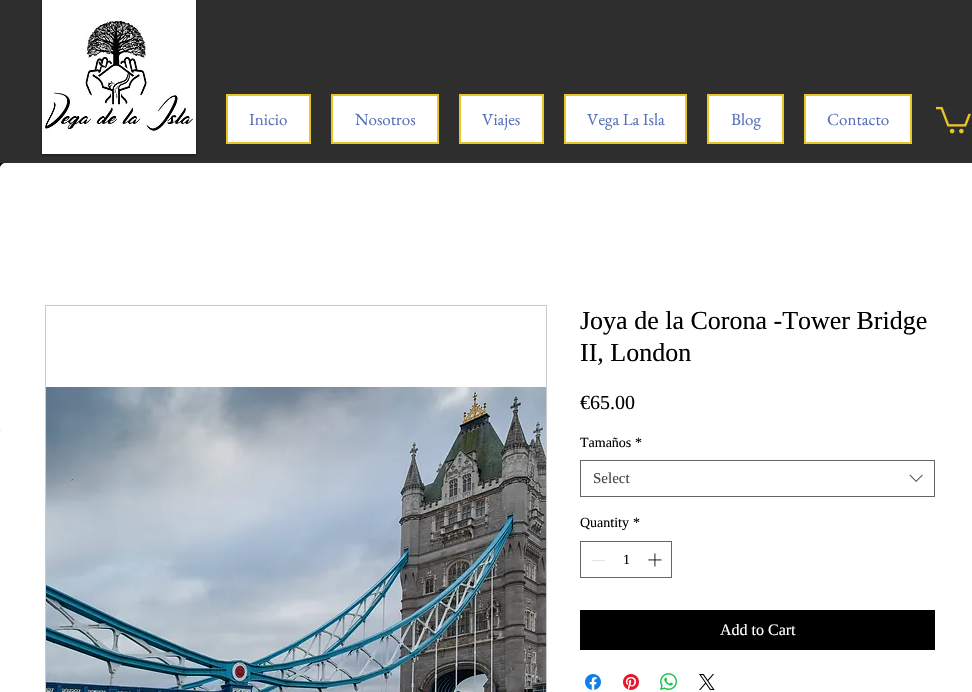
#include "include/core/SkBlurTypes.h"
#include "include/core/SkCanvas.h"
#include "include/core/SkData.h"
#include "include/core/SkFont.h"
#include "include/core/SkFontMgr.h"
#include "include/core/SkImage.h"
#include "include/core/SkMaskFilter.h"
#include "include/core/SkPaint.h"
#include "include/core/SkPathBuilder.h"
#include "include/core/SkTextBlob.h"
#include "include/effects/SkDashPathEffect.h"
#include "include/effects/SkGradientShader.h"
#include "include/utils/SkParsePath.h"

extern sk_sp<SkFontMgr> fontMgr;

static SkFont font(const char* family, int weight, float size, bool italic = false) {
    SkFontStyle style(weight, SkFontStyle::kNormal_Width,
        italic ? SkFontStyle::kItalic_Slant : SkFontStyle::kUpright_Slant);
    SkFont result(fontMgr->matchFamilyStyle(family, style), size);
    result.setSubpixel(true);
    return result;
}

static void drawLabel(SkCanvas* canvas, const char* s, float x, float y, const SkFont& font, SkColor color) {
    SkPaint ink(SkColor4f::FromColor(color));
    ink.setAntiAlias(true);
    canvas->drawString(s, x, y, font, ink);
}

static void fillRect(SkCanvas* canvas, float x, float y, float w, float h, SkColor color) {
    SkPaint ink(SkColor4f::FromColor(color));
    ink.setAntiAlias(true);
    canvas->drawRect(SkRect::MakeXYWH(x, y, w, h), ink);
}

static void drawPhoto(SkCanvas* canvas, const char* path, float x, float y, float w, float h) {
    auto image = SkImages::DeferredFromEncodedData(SkData::MakeFromFileName(path));
    canvas->drawImageRect(image, SkRect::MakeXYWH(x, y, w, h), SkSamplingOptions());
}

void draw(SkCanvas* canvas) {
    SkPaint paint;
    paint.setAntiAlias(true);
    canvas->clear(0xFF000000);
    fillRect(canvas, 0, 0, 972, 163, 0xFF2F2E2E);
    paint.setColor(0x80000000);
    paint.setMaskFilter(SkMaskFilter::MakeBlur(kNormal_SkBlurStyle, 1.5f));
    canvas->drawRect(SkRect::MakeXYWH(42, 1, 154, 154), paint);
    paint.setMaskFilter(nullptr);
    fillRect(canvas, 42, 0, 154, 154, 0xFFFFFFFF);
    drawPhoto(canvas, "assets/img1.png", 42, 20, 152, 112);
    paint.setColor(0xFFFFFFFF);
    canvas->drawRect(SkRect::MakeXYWH(227, 95, 83, 48), paint);
    paint.setStroke(true);
    paint.setStrokeWidth(2);
    paint.setColor(0xFFE8C529);
    canvas->drawRect(SkRect::MakeXYWH(227, 95, 83, 48), paint);
    SkFont font1 = font("EB Garamond", 400, 17);
    drawLabel(canvas, "Inicio", 249, 125, font1, 0xFF566FB8);
    paint.setStroke(false);
    paint.setColor(0xFFFFFFFF);
    canvas->drawRect(SkRect::MakeXYWH(332, 95, 106, 48), paint);
    paint.setStroke(true);
    paint.setColor(0xFFE8C529);
    canvas->drawRect(SkRect::MakeXYWH(332, 95, 106, 48), paint);
    drawLabel(canvas, "Nosotros", 355, 125, font1, 0xFF566FB8);
    paint.setStroke(false);
    paint.setColor(0xFFFFFFFF);
    canvas->drawRect(SkRect::MakeXYWH(460, 95, 83, 48), paint);
    paint.setStroke(true);
    paint.setColor(0xFFE8C529);
    canvas->drawRect(SkRect::MakeXYWH(460, 95, 83, 48), paint);
    drawLabel(canvas, "Viajes", 482, 125, font1, 0xFF566FB8);
    paint.setStroke(false);
    paint.setColor(0xFFFFFFFF);
    canvas->drawRect(SkRect::MakeXYWH(565, 95, 121, 48), paint);
    paint.setStroke(true);
    paint.setColor(0xFFE8C529);
    canvas->drawRect(SkRect::MakeXYWH(565, 95, 121, 48), paint);
    drawLabel(canvas, "Vega La Isla", 587, 125, font1, 0xFF566FB8);
    paint.setStroke(false);
    paint.setColor(0xFFFFFFFF);
    canvas->drawRect(SkRect::MakeXYWH(708, 95, 75, 48), paint);
    paint.setStroke(true);
    paint.setColor(0xFFE8C529);
    canvas->drawRect(SkRect::MakeXYWH(708, 95, 75, 48), paint);
    drawLabel(canvas, "Blog", 731, 125, font1, 0xFF566FB8);
    paint.setStroke(false);
    paint.setColor(0xFFFFFFFF);
    canvas->drawRect(SkRect::MakeXYWH(805, 95, 106, 48), paint);
    paint.setStroke(true);
    paint.setColor(0xFFE8C529);
    canvas->drawRect(SkRect::MakeXYWH(805, 95, 106, 48), paint);
    drawLabel(canvas, "Contacto", 827, 125, font1, 0xFF566FB8);
    drawPhoto(canvas, "assets/img2.png", 936, 106, 35, 28);
    paint.setStroke(false);
    paint.setColor(0xFFFFFFFF);
    canvas->drawRoundRect(SkRect::MakeXYWH(0.5f, 163.5f, 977, 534), 4.5f, 4.5f, paint);
    paint.setStroke(true);
    paint.setStrokeWidth(1);
    canvas->drawRoundRect(SkRect::MakeXYWH(0.5f, 163.5f, 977, 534), 4.5f, 4.5f, paint);
    paint.setColor(0xFFCACACA);
    canvas->drawRect(SkRect::MakeXYWH(45.5f, 305.5f, 501, 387), paint);
    drawPhoto(canvas, "assets/img3.png", 46, 387, 500, 305);
    SkFont font2 = font("Liberation Serif", 400, 26);
    drawLabel(canvas, "Joya de la Corona -Tower Bridge", 580, 329, font2, 0xFF000000);
    drawLabel(canvas, "II, London", 580, 361, font2, 0xFF000000);
    SkFont font3 = font("Liberation Serif", 400, 20);
    drawLabel(canvas, "€65.00", 580, 409, font3, 0xFF000000);
    SkFont font4 = font("Liberation Serif", 400, 14);
    drawLabel(canvas, "Tamaños", 580, 447, font4, 0xFF000000);
    drawLabel(canvas, "*", 635, 447, font4, 0xFF000000);
    paint.setColor(0xFF666666);
    canvas->drawRect(SkRect::MakeXYWH(580.5f, 460.5f, 354, 36), paint);
    SkFont font5 = font("Liberation Serif", 400, 15);
    drawLabel(canvas, "Select", 593, 483, font5, 0xFF444444);
    drawPhoto(canvas, "assets/img4.png", 909, 474, 14, 8);
    drawLabel(canvas, "Quantity", 580, 527, font4, 0xFF000000);
    drawLabel(canvas, "*", 633, 527, font4, 0xFF000000);
    canvas->drawRect(SkRect::MakeXYWH(580.5f, 541.5f, 91, 36), paint);
    fillRect(canvas, 592, 560, 13, 1, 0xFFE3E3E3);
    drawLabel(canvas, "1", 623, 564, font4, 0xFF000000);
    drawPhoto(canvas, "assets/img5.png", 648, 553, 14, 14);
    fillRect(canvas, 580, 610, 355, 40, 0xFF000000);
    SkFont font6 = font("Liberation Serif", 400, 16);
    drawLabel(canvas, "Add to Cart", 720, 635, font6, 0xFFFFFFFF);
    drawPhoto(canvas, "assets/img6.png", 585, 674, 16, 16);
    drawPhoto(canvas, "assets/img7.png", 623, 674, 16, 16);
    drawPhoto(canvas, "assets/img8.png", 660, 673, 17, 17);
    drawPhoto(canvas, "assets/img9.png", 699, 674, 16, 16);
}
